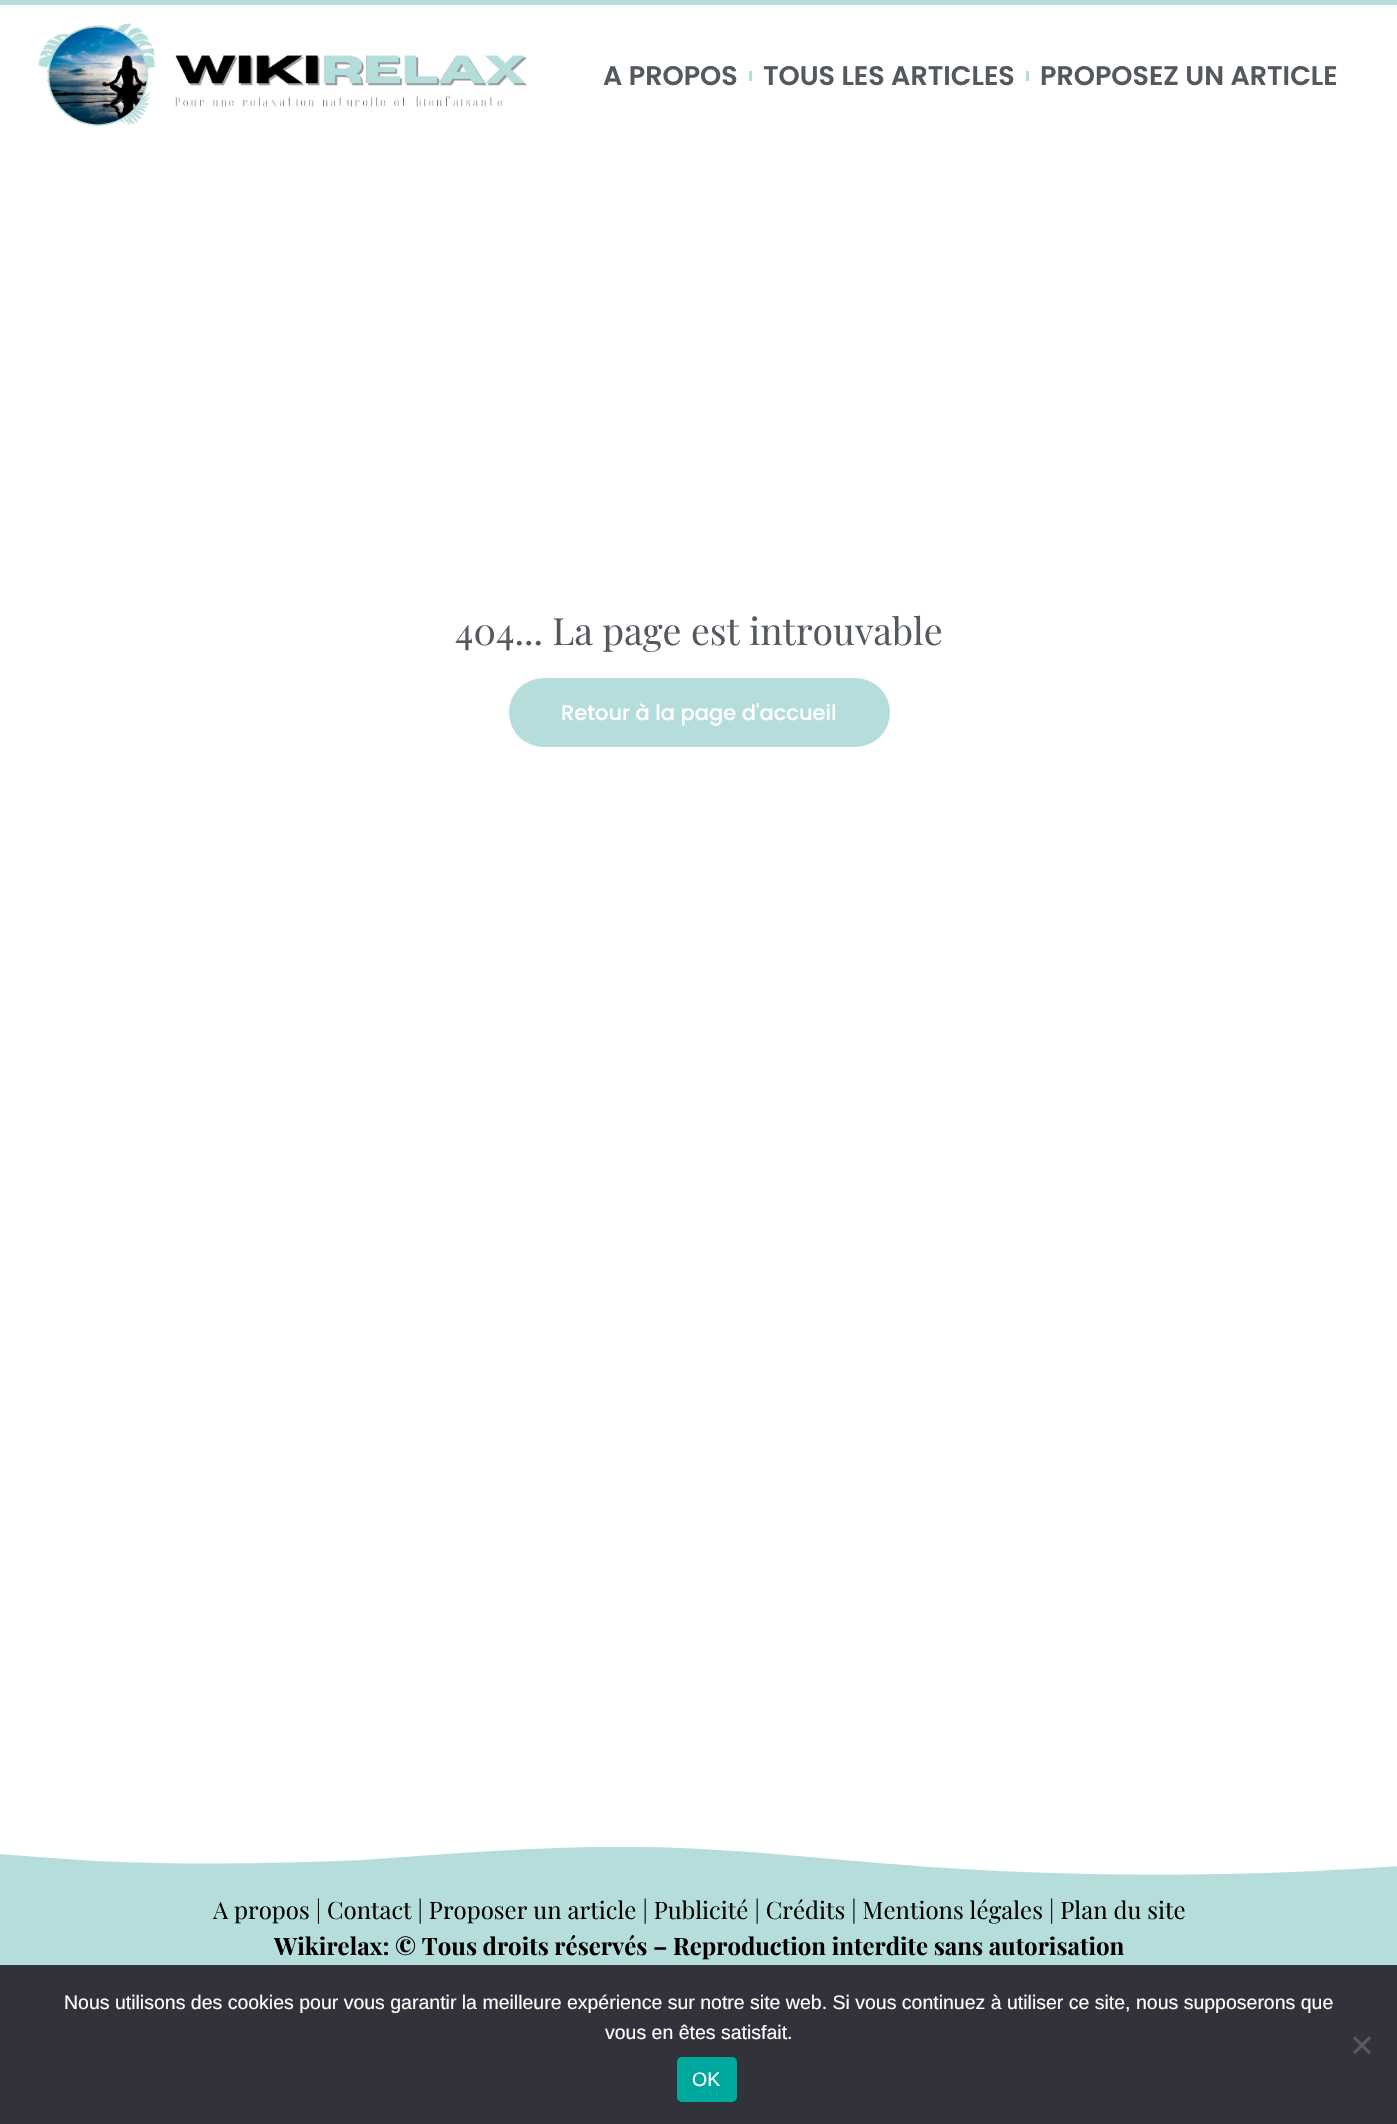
#include "include/core/SkBlurTypes.h"
#include "include/core/SkCanvas.h"
#include "include/core/SkData.h"
#include "include/core/SkFont.h"
#include "include/core/SkFontMgr.h"
#include "include/core/SkImage.h"
#include "include/core/SkMaskFilter.h"
#include "include/core/SkPaint.h"
#include "include/core/SkPathBuilder.h"
#include "include/core/SkTextBlob.h"
#include "include/effects/SkDashPathEffect.h"
#include "include/effects/SkGradientShader.h"
#include "include/utils/SkParsePath.h"

extern sk_sp<SkFontMgr> fontMgr;

static SkFont font(const char* family, int weight, float size, bool italic = false) {
    SkFontStyle style(weight, SkFontStyle::kNormal_Width,
        italic ? SkFontStyle::kItalic_Slant : SkFontStyle::kUpright_Slant);
    SkFont result(fontMgr->matchFamilyStyle(family, style), size);
    result.setSubpixel(true);
    return result;
}

static void drawLabel(SkCanvas* canvas, const char* s, float x, float y, const SkFont& font, SkColor color) {
    SkPaint ink(SkColor4f::FromColor(color));
    ink.setAntiAlias(true);
    canvas->drawString(s, x, y, font, ink);
}

static void fillRect(SkCanvas* canvas, float x, float y, float w, float h, SkColor color) {
    SkPaint ink(SkColor4f::FromColor(color));
    ink.setAntiAlias(true);
    canvas->drawRect(SkRect::MakeXYWH(x, y, w, h), ink);
}

static void fillRRect(SkCanvas* canvas, float x, float y, float w, float h, float radius, SkColor color) {
    SkPaint ink(SkColor4f::FromColor(color));
    ink.setAntiAlias(true);
    canvas->drawRoundRect(SkRect::MakeXYWH(x, y, w, h), radius, radius, ink);
}

static void drawPhoto(SkCanvas* canvas, const char* path, float x, float y, float w, float h) {
    auto image = SkImages::DeferredFromEncodedData(SkData::MakeFromFileName(path));
    canvas->drawImageRect(image, SkRect::MakeXYWH(x, y, w, h), SkSamplingOptions());
}

static SkPath parsePath(const char* data, bool evenOdd = false) {
    SkPath result = *SkParsePath::FromSVGString(data);
    if (evenOdd) result.setFillType(SkPathFillType::kEvenOdd);
    return result;
}

void draw(SkCanvas* canvas) {
    SkPaint paint;
    paint.setAntiAlias(true);
    canvas->clear(0xFFFFFFFF);
    fillRect(canvas, 0, 0, 1397, 5, 0xFFB5DDDC);
    drawPhoto(canvas, "assets/img1.png", 38, 23, 489, 103);
    SkFont font1 = font("Poppins", 600, 27);
    drawLabel(canvas, "A PROPOS", 603, 85, font1, 0xFF54595F);
    fillRect(canvas, 749, 71, 3, 10, 0xFFB5DDDC);
    drawLabel(canvas, "TOUS LES ARTICLES", 763, 85, font1, 0xFF54595F);
    fillRect(canvas, 1026, 71, 3, 10, 0xFFB5DDDC);
    drawLabel(canvas, "PROPOSEZ UN ARTICLE", 1040, 85, font1, 0xFF54595F);
    SkFont font2 = font("Playfair Display", 400, 37.5f);
    drawLabel(canvas, "404... La page est introuvable", 455, 645, font2, 0xFF54595F);
    fillRRect(canvas, 509, 678, 381, 69, 34.5f, 0xFFB5DDDC);
    SkFont font3 = font("Poppins", 500, 21);
    drawLabel(canvas, "Retour à la page d'accueil", 561, 720, font3, 0xFFFFFFFF);
    fillRect(canvas, 0, 1847, 1397, 118, 0xFFB5DDDC);
    paint.setColor(0xFFFFFFFF);
    canvas->drawPath(parsePath("M590 1847C709 1844 827 1860 946 1868C1039 1874 1131 1876 1224 1874C1282 1873 1341 1870 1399 1866V1845H-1V1854C32 1857 65 1859 97 1861C186 1865 274 1864 362 1860L461 1853C504 1850 547 1848 590 1847Z"), paint);
    SkFont font4 = font("Playfair Display", 400, 24);
    drawLabel(canvas, "A propos | Contact | Proposer un article | Publicité | Crédits | Mentions légales | Plan du site", 213, 1919, font4, 0xFF000000);
    SkFont font5 = font("Playfair Display", 700, 24);
    drawLabel(canvas, "Wikirelax: © Tous droits réservés – Reproduction interdite sans autorisation", 274, 1955, font5, 0xFF000000);
    fillRect(canvas, 0, 1965, 1397, 159, 0xFF32323A);
    SkFont font6 = font("Liberation Sans", 400, 19.5f);
    drawLabel(canvas, "Nous utilisons des cookies pour vous garantir la meilleure expérience sur notre site web. Si vous continuez à utiliser ce site, nous supposerons que", 64, 2009, font6, 0xFFFFFFFF);
    drawLabel(canvas, "vous en êtes satisfait.", 605, 2039, font6, 0xFFFFFFFF);
    paint.setColor(0xFF59595D);
    canvas->drawPath(parsePath("M1369 2036L1371 2038.5L1355 2054.5L1353 2052Z"), paint);
    canvas->drawPath(parsePath("M1353 2038.5L1355 2036L1371 2052L1369 2054.5Z"), paint);
    fillRRect(canvas, 677, 2057, 60, 45, 5, 0xFF00A99D);
    drawLabel(canvas, "OK", 692, 2086, font6, 0xFFFFFFFF);
}
